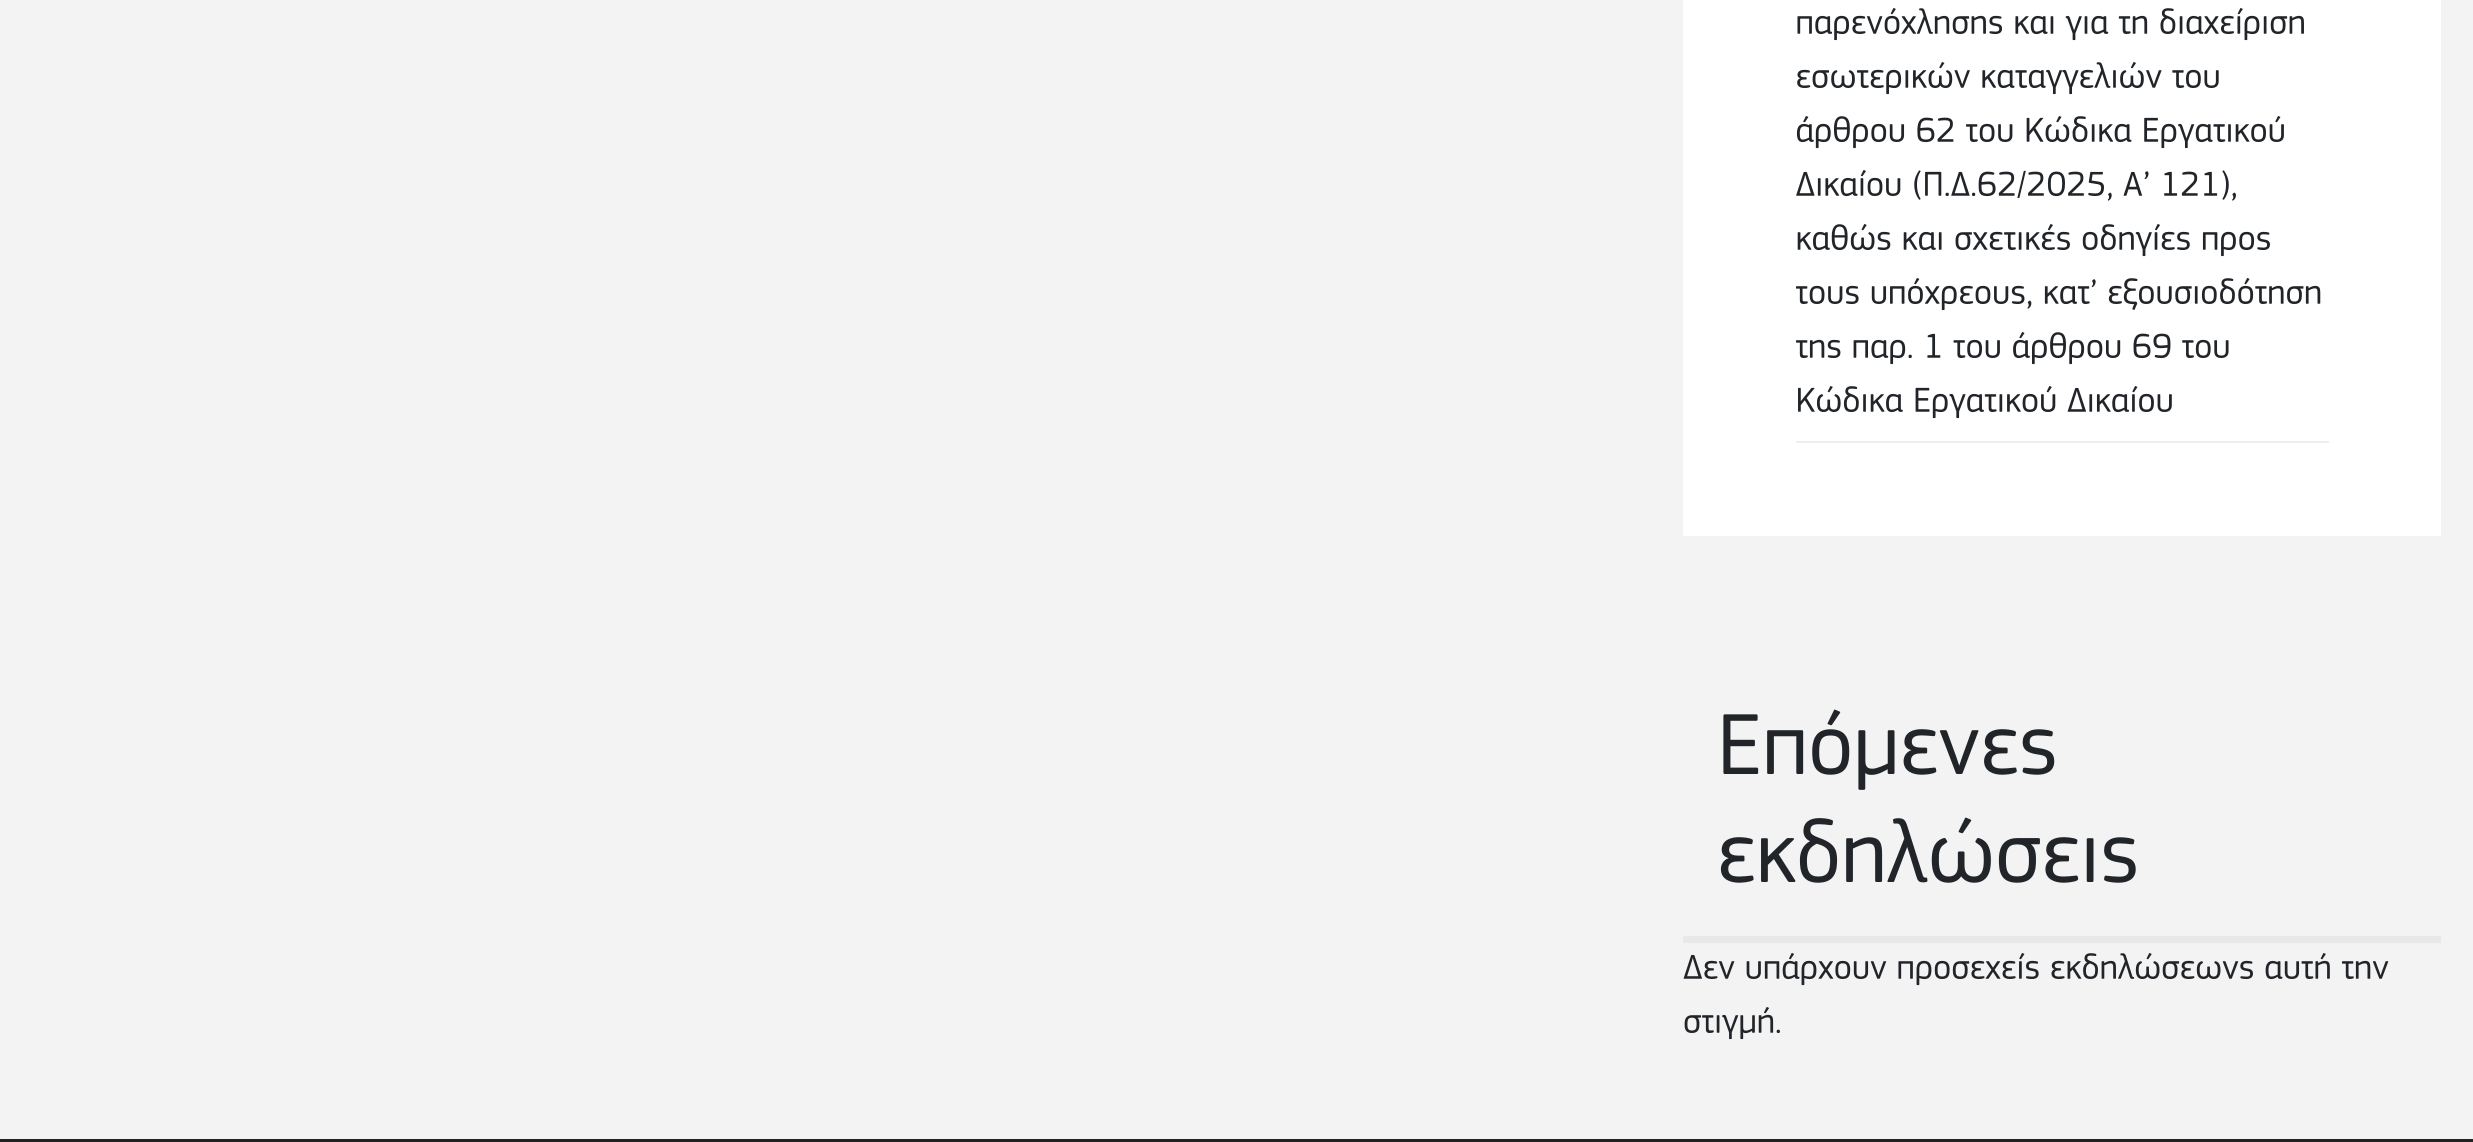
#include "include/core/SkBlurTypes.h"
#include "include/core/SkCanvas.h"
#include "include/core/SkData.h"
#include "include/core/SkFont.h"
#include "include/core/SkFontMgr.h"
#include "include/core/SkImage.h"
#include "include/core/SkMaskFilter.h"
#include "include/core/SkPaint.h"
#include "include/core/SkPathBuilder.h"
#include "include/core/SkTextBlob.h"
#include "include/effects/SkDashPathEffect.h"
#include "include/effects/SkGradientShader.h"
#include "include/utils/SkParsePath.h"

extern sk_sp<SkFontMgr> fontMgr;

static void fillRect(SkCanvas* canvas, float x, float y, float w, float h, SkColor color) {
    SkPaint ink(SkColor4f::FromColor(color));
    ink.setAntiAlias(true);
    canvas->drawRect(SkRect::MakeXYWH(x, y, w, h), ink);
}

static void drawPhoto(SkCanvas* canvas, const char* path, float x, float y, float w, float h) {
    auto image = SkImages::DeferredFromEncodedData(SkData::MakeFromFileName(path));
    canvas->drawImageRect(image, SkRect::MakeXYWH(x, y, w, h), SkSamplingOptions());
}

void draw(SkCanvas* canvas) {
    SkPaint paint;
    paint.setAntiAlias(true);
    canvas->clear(0xFFF3F3F3);
    fillRect(canvas, 1683, 0, 758, 536, 0xFFFFFFFF);
    fillRect(canvas, 1796, 441, 533, 2, 0xFFEEEEEE);
    drawPhoto(canvas, "assets/img1.png", 1797, 8, 507, 33);
    drawPhoto(canvas, "assets/img2.png", 1797, 62, 422, 33);
    drawPhoto(canvas, "assets/img3.png", 1796, 116, 488, 33);
    drawPhoto(canvas, "assets/img4.png", 1796, 170, 440, 31);
    drawPhoto(canvas, "assets/img5.png", 1797, 224, 473, 33);
    drawPhoto(canvas, "assets/img6.png", 1796, 278, 525, 33);
    drawPhoto(canvas, "assets/img7.png", 1796, 332, 433, 33);
    drawPhoto(canvas, "assets/img8.png", 1798, 386, 374, 33);
    fillRect(canvas, 1683, 936, 758, 7, 0xFFE8E8E8);
    drawPhoto(canvas, "assets/img9.png", 1723, 709, 332, 81);
    drawPhoto(canvas, "assets/img10.png", 1720, 817, 416, 66);
    drawPhoto(canvas, "assets/img11.png", 1683, 953, 706, 33);
    drawPhoto(canvas, "assets/img12.png", 1684, 1007, 96, 33);
    fillRect(canvas, 0, 1139, 2473, 3, 0xFF222222);
}
